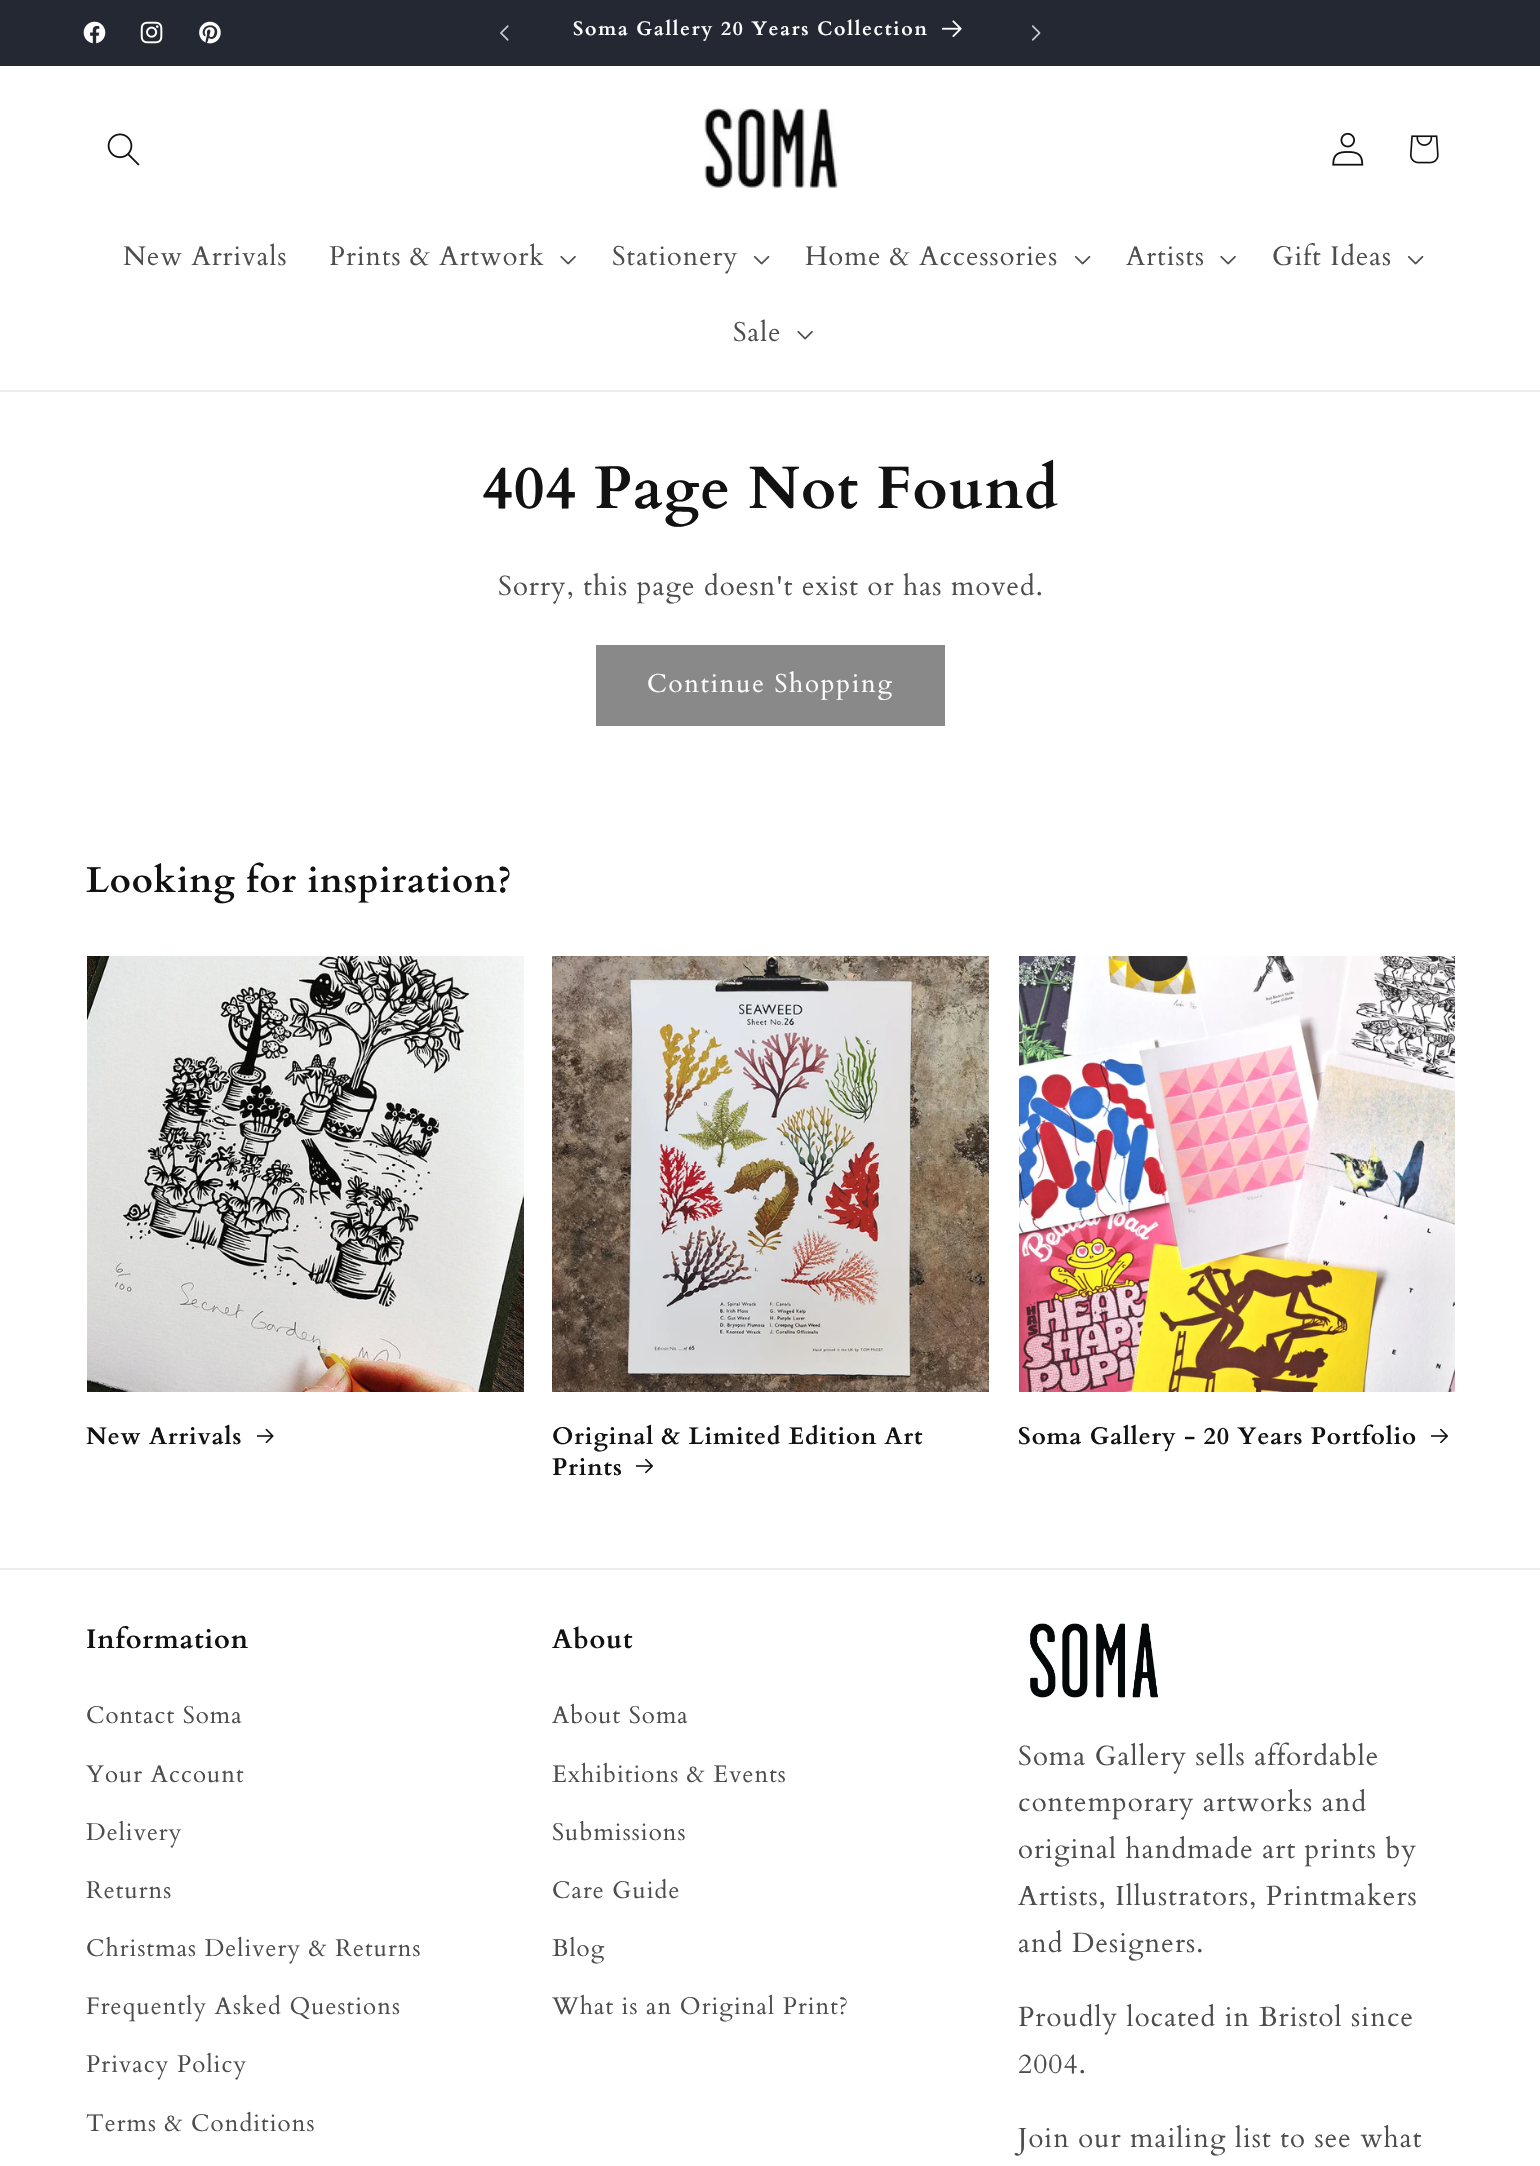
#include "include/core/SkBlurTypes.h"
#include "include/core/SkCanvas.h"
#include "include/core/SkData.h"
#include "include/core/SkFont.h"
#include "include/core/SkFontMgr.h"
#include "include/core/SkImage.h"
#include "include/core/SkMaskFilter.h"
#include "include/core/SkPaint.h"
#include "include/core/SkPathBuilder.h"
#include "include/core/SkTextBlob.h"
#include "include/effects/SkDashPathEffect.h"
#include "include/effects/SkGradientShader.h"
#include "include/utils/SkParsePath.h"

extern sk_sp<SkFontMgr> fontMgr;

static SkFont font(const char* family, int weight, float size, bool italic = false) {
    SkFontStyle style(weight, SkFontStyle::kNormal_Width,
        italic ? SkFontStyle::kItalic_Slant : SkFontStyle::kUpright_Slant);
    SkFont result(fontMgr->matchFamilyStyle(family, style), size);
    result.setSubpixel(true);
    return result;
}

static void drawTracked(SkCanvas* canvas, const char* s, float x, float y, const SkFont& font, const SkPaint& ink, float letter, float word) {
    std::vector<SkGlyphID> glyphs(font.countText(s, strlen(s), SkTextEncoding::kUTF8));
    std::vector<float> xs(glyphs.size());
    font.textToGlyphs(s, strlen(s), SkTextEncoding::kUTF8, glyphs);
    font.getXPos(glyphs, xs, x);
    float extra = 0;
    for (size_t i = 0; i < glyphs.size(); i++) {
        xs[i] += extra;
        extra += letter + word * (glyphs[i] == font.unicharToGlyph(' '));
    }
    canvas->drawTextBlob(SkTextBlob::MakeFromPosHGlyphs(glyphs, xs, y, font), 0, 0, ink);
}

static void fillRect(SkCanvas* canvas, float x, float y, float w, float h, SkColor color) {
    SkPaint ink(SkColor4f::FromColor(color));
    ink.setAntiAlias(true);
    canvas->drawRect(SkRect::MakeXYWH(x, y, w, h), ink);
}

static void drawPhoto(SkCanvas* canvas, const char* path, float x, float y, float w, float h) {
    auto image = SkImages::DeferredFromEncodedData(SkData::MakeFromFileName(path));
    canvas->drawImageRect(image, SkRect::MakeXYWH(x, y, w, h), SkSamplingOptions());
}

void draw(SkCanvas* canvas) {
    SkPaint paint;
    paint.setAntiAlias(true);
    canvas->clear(0xFFFFFFFF);
    fillRect(canvas, 0, 0, 1540, 66, 0xFF242833);
    drawPhoto(canvas, "assets/img1.png", 83, 21, 23, 23);
    drawPhoto(canvas, "assets/img2.png", 140, 21, 23, 23);
    drawPhoto(canvas, "assets/img3.png", 199, 21, 22, 23);
    drawPhoto(canvas, "assets/img4.png", 500, 25, 9, 16);
    SkFont font1 = font("Cardo", 700, 19.5f);
    paint.setColor(0xFFFFFFFF);
    drawTracked(canvas, "Soma Gallery 20 Years Collection", 573, 35, font1, paint, 1.75f, 0);
    drawPhoto(canvas, "assets/img5.png", 942, 20, 20, 17);
    drawPhoto(canvas, "assets/img6.png", 1031, 25, 10, 16);
    fillRect(canvas, 0, 390, 1540, 2, 0xFFECECEC);
    drawPhoto(canvas, "assets/img7.png", 107, 133, 33, 33);
    drawPhoto(canvas, "assets/img8.png", 704, 108, 135, 81);
    drawPhoto(canvas, "assets/img9.png", 1332, 132, 32, 34);
    drawPhoto(canvas, "assets/img10.png", 1410, 135, 29, 29);
    SkFont font2 = font("Cardo", 400, 27);
    paint.setColor(0xFF4D4D4D);
    drawTracked(canvas, "New Arrivals", 123, 265, font2, paint, 1.05f, 0);
    drawTracked(canvas, "Prints & Artwork", 329, 265, font2, paint, 1.05f, 0);
    drawPhoto(canvas, "assets/img11.png", 560, 255, 16, 10);
    drawTracked(canvas, "Stationery", 612, 265, font2, paint, 1.05f, 0);
    drawPhoto(canvas, "assets/img12.png", 753, 255, 17, 10);
    drawTracked(canvas, "Home & Accessories", 805, 265, font2, paint, 1.05f, 0);
    drawPhoto(canvas, "assets/img12.png", 1074, 255, 17, 10);
    drawTracked(canvas, "Artists", 1126, 265, font2, paint, 1.05f, 0);
    drawPhoto(canvas, "assets/img11.png", 1220, 255, 16, 10);
    drawTracked(canvas, "Gift Ideas", 1272, 265, font2, paint, 1.05f, 0);
    drawPhoto(canvas, "assets/img12.png", 1407, 255, 17, 10);
    drawTracked(canvas, "Sale", 733, 341, font2, paint, 1.05f, 0);
    drawPhoto(canvas, "assets/img11.png", 797, 330, 16, 10);
    SkFont font3 = font("Cardo", 700, 60);
    paint.setColor(0xFF121212);
    drawTracked(canvas, "404 Page Not Found", 482, 508, font3, paint, 0.9f, 0);
    SkFont font4 = font("Cardo", 400, 27.6f);
    paint.setColor(0xFF4D4D4D);
    drawTracked(canvas, "Sorry, this page doesn't exist or has moved.", 498, 595, font4, paint, 1.05f, 0);
    fillRect(canvas, 596, 645, 349, 81, 0xFF898989);
    SkFont font5 = font("Cardo", 400, 25.9f);
    paint.setColor(0xFFFFFFFF);
    drawTracked(canvas, "Continue Shopping", 647, 692, font5, paint, 1.75f, 0);
    SkFont font6 = font("Cardo", 700, 36);
    paint.setColor(0xFF121212);
    drawTracked(canvas, "Looking for inspiration?", 86, 892, font6, paint, 0.9f, 0);
    drawPhoto(canvas, "assets/img13.png", 87, 956, 437, 436);
    SkFont font7 = font("Cardo", 700, 24);
    drawTracked(canvas, "New Arrivals", 86, 1444, font7, paint, 0.9f, 0);
    drawPhoto(canvas, "assets/img14.png", 257, 1428, 17, 15);
    drawPhoto(canvas, "assets/img15.png", 552, 956, 437, 436);
    drawTracked(canvas, "Original & Limited Edition Art", 552, 1444, font7, paint, 0.9f, 0);
    drawTracked(canvas, "Prints", 552, 1475, font7, paint, 0.9f, 0);
    drawPhoto(canvas, "assets/img16.png", 636, 1458, 17, 16);
    drawPhoto(canvas, "assets/img17.png", 1019, 956, 436, 436);
    drawTracked(canvas, "Soma Gallery - 20 Years Portfolio", 1018, 1444, font7, paint, 0.9f, 0);
    drawPhoto(canvas, "assets/img18.png", 1431, 1428, 17, 15);
    fillRect(canvas, 0, 1568, 1540, 2, 0xFFECECEC);
    SkFont font8 = font("Cardo", 700, 27);
    drawTracked(canvas, "Information", 86, 1648, font8, paint, 0.9f, 0);
    SkFont font9 = font("Cardo", 400, 24.1f);
    paint.setColor(0xFF4D4D4D);
    drawTracked(canvas, "Contact Soma", 86, 1723, font9, paint, 1.05f, 0);
    drawTracked(canvas, "Your Account", 86, 1782, font9, paint, 1.05f, 0);
    drawTracked(canvas, "Delivery", 86, 1840, font9, paint, 1.05f, 0);
    drawTracked(canvas, "Returns", 86, 1898, font9, paint, 1.05f, 0);
    drawTracked(canvas, "Christmas Delivery & Returns", 86, 1956, font9, paint, 1.05f, 0);
    drawTracked(canvas, "Frequently Asked Questions", 86, 2014, font9, paint, 1.05f, 0);
    drawTracked(canvas, "Privacy Policy", 86, 2072, font9, paint, 1.05f, 0);
    drawTracked(canvas, "Terms & Conditions", 86, 2131, font9, paint, 1.05f, 0);
    paint.setColor(0xFF121212);
    drawTracked(canvas, "About", 552, 1648, font8, paint, 0.9f, 0);
    paint.setColor(0xFF4D4D4D);
    drawTracked(canvas, "About Soma", 552, 1723, font9, paint, 1.05f, 0);
    drawTracked(canvas, "Exhibitions & Events", 552, 1782, font9, paint, 1.05f, 0);
    drawTracked(canvas, "Submissions", 552, 1840, font9, paint, 1.05f, 0);
    drawTracked(canvas, "Care Guide", 552, 1898, font9, paint, 1.05f, 0);
    drawTracked(canvas, "Blog", 552, 1956, font9, paint, 1.05f, 0);
    drawTracked(canvas, "What is an Original Print?", 552, 2014, font9, paint, 1.05f, 0);
    drawPhoto(canvas, "assets/img19.png", 1030, 1623, 128, 75);
    drawTracked(canvas, "Soma Gallery sells affordable", 1018, 1765, font4, paint, 1.05f, 0);
    drawTracked(canvas, "contemporary artworks and", 1018, 1811, font4, paint, 1.05f, 0);
    drawTracked(canvas, "original handmade art prints by", 1018, 1858, font4, paint, 1.05f, 0);
    drawTracked(canvas, "Artists, Illustrators, Printmakers", 1018, 1905, font4, paint, 1.05f, 0);
    drawTracked(canvas, "and Designers.", 1018, 1952, font4, paint, 1.05f, 0);
    drawTracked(canvas, "Proudly located in Bristol since", 1018, 2026, font4, paint, 1.05f, 0);
    drawTracked(canvas, "2004.", 1018, 2073, font4, paint, 1.05f, 0);
    drawTracked(canvas, "Join our mailing list to see what", 1018, 2147, font4, paint, 1.05f, 0);
}
